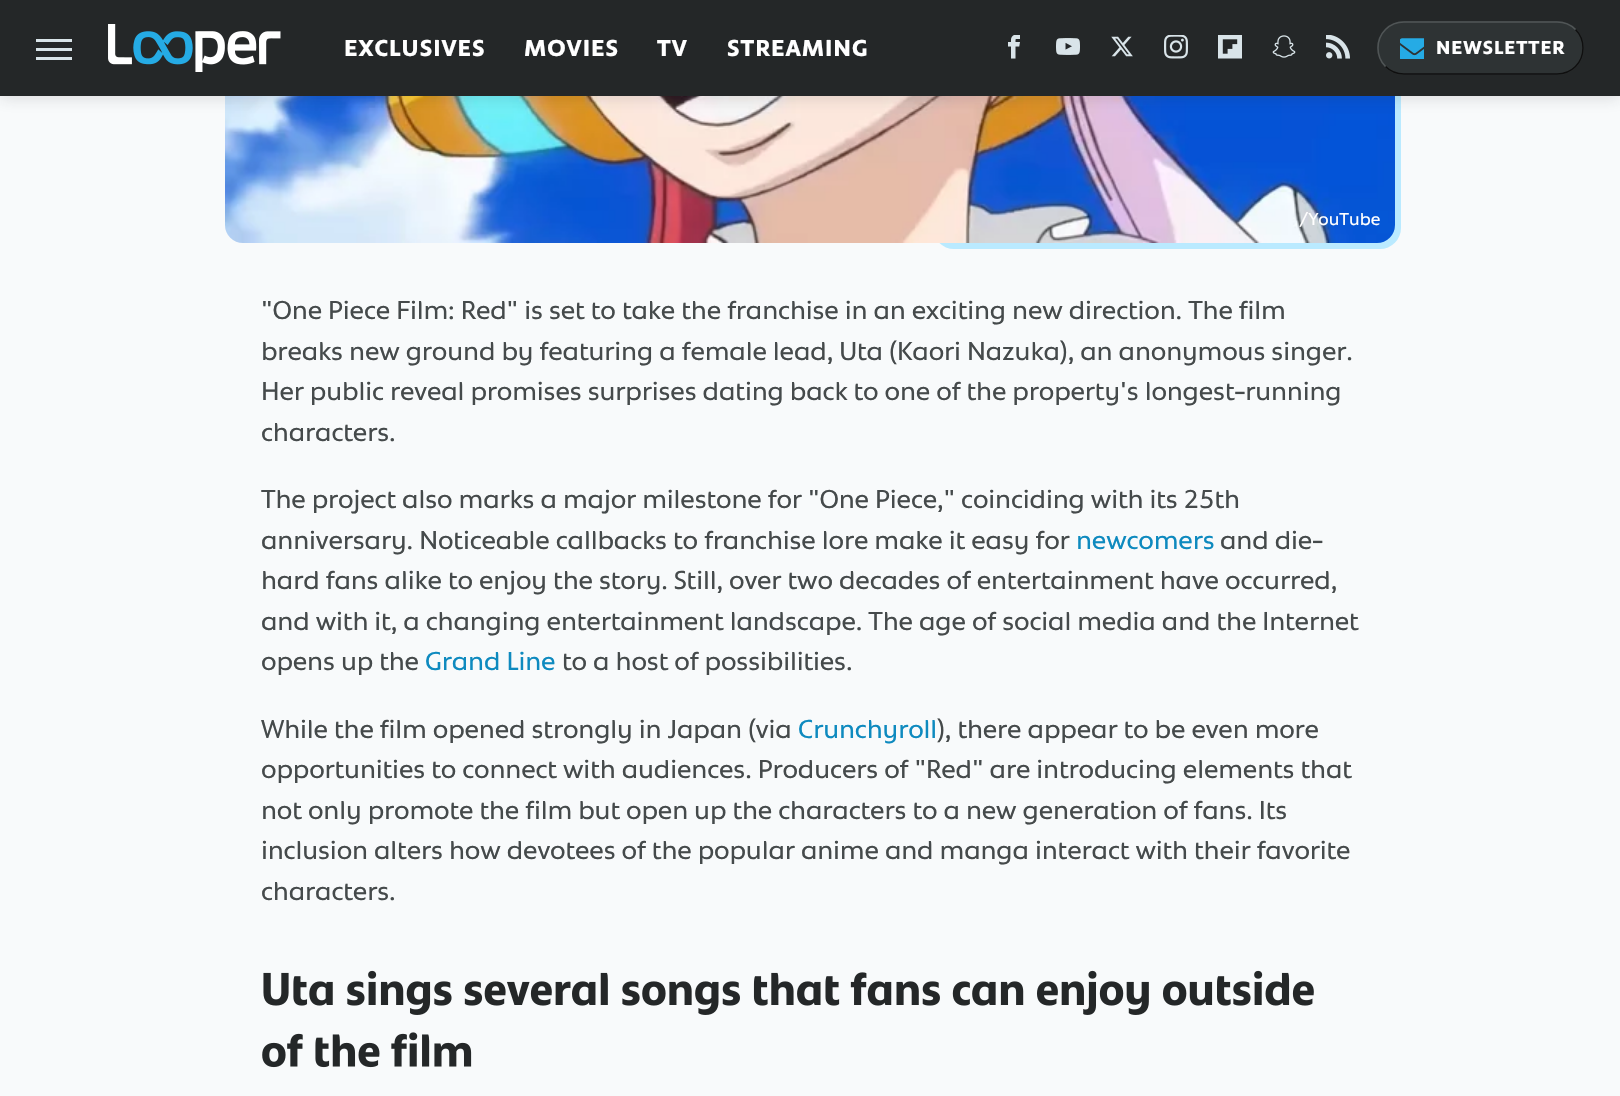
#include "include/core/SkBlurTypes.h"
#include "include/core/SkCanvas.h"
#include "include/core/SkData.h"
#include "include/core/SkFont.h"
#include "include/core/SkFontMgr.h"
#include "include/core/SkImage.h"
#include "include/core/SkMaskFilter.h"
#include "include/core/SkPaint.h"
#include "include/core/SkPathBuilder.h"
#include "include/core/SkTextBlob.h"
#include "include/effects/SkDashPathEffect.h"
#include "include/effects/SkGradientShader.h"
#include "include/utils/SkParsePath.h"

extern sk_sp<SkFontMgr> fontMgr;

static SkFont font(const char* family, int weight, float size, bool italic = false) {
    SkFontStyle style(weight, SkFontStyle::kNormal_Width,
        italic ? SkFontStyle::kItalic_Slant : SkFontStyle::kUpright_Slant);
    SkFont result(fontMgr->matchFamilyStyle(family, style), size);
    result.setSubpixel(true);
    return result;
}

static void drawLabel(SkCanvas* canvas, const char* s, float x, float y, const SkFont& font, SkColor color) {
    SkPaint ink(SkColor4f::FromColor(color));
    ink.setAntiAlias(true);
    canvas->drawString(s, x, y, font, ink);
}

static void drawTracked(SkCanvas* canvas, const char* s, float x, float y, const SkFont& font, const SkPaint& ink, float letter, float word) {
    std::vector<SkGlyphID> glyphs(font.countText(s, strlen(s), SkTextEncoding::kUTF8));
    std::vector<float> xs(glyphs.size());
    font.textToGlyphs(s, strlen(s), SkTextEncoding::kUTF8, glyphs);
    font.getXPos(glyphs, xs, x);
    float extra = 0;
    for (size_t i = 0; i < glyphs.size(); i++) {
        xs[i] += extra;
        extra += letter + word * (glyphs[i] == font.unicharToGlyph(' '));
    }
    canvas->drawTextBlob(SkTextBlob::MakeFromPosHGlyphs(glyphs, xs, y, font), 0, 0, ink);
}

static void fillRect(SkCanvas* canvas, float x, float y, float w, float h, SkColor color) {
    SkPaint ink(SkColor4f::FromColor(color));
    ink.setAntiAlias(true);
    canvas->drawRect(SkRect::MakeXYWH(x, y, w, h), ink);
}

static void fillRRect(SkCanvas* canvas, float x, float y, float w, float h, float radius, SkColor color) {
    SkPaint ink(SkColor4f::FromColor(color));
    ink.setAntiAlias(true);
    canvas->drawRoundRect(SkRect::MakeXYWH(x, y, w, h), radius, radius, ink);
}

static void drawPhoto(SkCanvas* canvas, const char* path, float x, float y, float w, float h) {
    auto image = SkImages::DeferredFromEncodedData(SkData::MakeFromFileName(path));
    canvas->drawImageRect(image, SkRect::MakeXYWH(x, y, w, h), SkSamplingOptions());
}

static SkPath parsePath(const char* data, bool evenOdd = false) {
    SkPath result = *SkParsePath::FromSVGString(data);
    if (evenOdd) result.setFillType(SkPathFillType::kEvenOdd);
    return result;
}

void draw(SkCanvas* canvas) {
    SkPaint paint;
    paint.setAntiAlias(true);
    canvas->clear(0xFFF8FAFB);
    fillRRect(canvas, 933, -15, 468, 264, 21, 0xFFBAEAFF);
    drawPhoto(canvas, "assets/img10.png", 225, 96, 1170, 147);
    paint.setColor(0x26272B2E);
    paint.setMaskFilter(SkMaskFilter::MakeBlur(kNormal_SkBlurStyle, 7.5f));
    canvas->drawRect(SkRect::MakeXYWH(0, 2, 1620, 96), paint);
    paint.setMaskFilter(nullptr);
    fillRect(canvas, 0, 0, 1620, 96, 0xFF242728);
    fillRect(canvas, 36, 39, 36, 3, 0xFFD9E4E9);
    fillRect(canvas, 36, 48, 36, 3, 0xFFD9E4E9);
    fillRect(canvas, 36, 57, 36, 3, 0xFFD9E4E9);
    drawPhoto(canvas, "assets/img1.png", 108, 24, 173, 48);
    SkFont font1 = font("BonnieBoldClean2", 700, 24);
    paint.setColor(0xFFFFFFFF);
    drawTracked(canvas, "EXCLUSIVES", 344, 56, font1, paint, 1, 0);
    drawTracked(canvas, "MOVIES", 524, 56, font1, paint, 1, 0);
    drawTracked(canvas, "TV", 657, 56, font1, paint, 1, 0);
    drawTracked(canvas, "STREAMING", 727, 56, font1, paint, 1, 0);
    drawPhoto(canvas, "assets/img2.png", 1008, 35, 12, 24);
    drawPhoto(canvas, "assets/img3.png", 1056, 38, 24, 17);
    drawPhoto(canvas, "assets/img4.png", 1111, 36, 22, 21);
    drawPhoto(canvas, "assets/img5.png", 1164, 35, 24, 24);
    drawPhoto(canvas, "assets/img6.png", 1218, 35, 24, 24);
    drawPhoto(canvas, "assets/img7.png", 1272, 35, 24, 23);
    drawPhoto(canvas, "assets/img8.png", 1326, 35, 24, 24);
    fillRRect(canvas, 1377, 21, 207, 54, 27, 0xFF2E3334);
    paint.setStroke(true);
    paint.setStrokeWidth(1.5f);
    paint.setColor(0xFF0F0F0F);
    canvas->drawPath(parsePath("M1575.5 29.5C1580.5 34.5 1583 41 1583 48C1583 55 1580.5 61.5 1575.5 66.5C1570.5 71.5 1564 74 1557 74H1404C1397 74 1390.5 71.5 1385.5 66.5"), paint);
    paint.setColor(0xFF505556);
    canvas->drawPath(parsePath("M1385.5 66.5C1380.5 61.5 1378 55 1378 48C1378 41 1380.5 34.5 1385.5 29.5C1390.5 24.5 1397 22 1404 22H1557C1564 22 1570.5 24.5 1575.5 29.5"), paint);
    drawPhoto(canvas, "assets/img9.png", 1400, 38, 24, 21);
    SkFont font2 = font("BonnieBoldClean2", 700, 19.5f);
    paint.setStroke(false);
    paint.setColor(0xFFFFFFFF);
    drawTracked(canvas, "NEWSLETTER", 1436, 54, font2, paint, 1, 0);
    SkFont font3 = font("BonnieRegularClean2", 400, 18);
    drawLabel(canvas, "/YouTube", 1299, 225, font3, 0xFFFFFFFF);
    SkFont font4 = font("BonnieRegularClean2", 400, 27);
    paint.setColor(0xFF454A4B);
    drawTracked(canvas, "\"One Piece Film: Red\" is set to take the franchise in an exciting new direction. The film", 261, 319, font4, paint, -0.15f, 0);
    drawTracked(canvas, "breaks new ground by featuring a female lead, Uta (Kaori Nazuka), an anonymous singer.", 261, 360, font4, paint, -0.15f, 0);
    drawTracked(canvas, "Her public reveal promises surprises dating back to one of the property's longest-running", 261, 400, font4, paint, -0.15f, 0);
    drawTracked(canvas, "characters.", 261, 441, font4, paint, -0.15f, 0);
    drawTracked(canvas, "The project also marks a major milestone for \"One Piece,\" coinciding with its 25th", 261, 508, font4, paint, -0.15f, 0);
    drawTracked(canvas, "anniversary. Noticeable callbacks to franchise lore make it easy for", 261, 549, font4, paint, -0.15f, 0);
    paint.setColor(0xFF0E8ABF);
    drawTracked(canvas, "newcomers", 1076, 549, font4, paint, -0.15f, 0);
    paint.setColor(0xFF454A4B);
    drawTracked(canvas, "and die-", 1220, 549, font4, paint, -0.15f, 0);
    drawTracked(canvas, "hard fans alike to enjoy the story. Still, over two decades of entertainment have occurred,", 261, 589, font4, paint, -0.15f, 0);
    drawTracked(canvas, "and with it, a changing entertainment landscape. The age of social media and the Internet", 261, 630, font4, paint, -0.15f, 0);
    drawTracked(canvas, "opens up the", 261, 670, font4, paint, -0.15f, 0);
    paint.setColor(0xFF0E8ABF);
    drawTracked(canvas, "Grand Line", 425, 670, font4, paint, -0.15f, 0);
    paint.setColor(0xFF454A4B);
    drawTracked(canvas, "to a host of possibilities.", 562, 670, font4, paint, -0.15f, 0);
    drawTracked(canvas, "While the film opened strongly in Japan (via", 261, 738, font4, paint, -0.15f, 0);
    paint.setColor(0xFF0E8ABF);
    drawTracked(canvas, "Crunchyroll", 798, 738, font4, paint, -0.15f, 0);
    paint.setColor(0xFF454A4B);
    drawTracked(canvas, "), there appear to be even more", 937, 738, font4, paint, -0.15f, 0);
    drawTracked(canvas, "opportunities to connect with audiences. Producers of \"Red\" are introducing elements that", 261, 778, font4, paint, -0.15f, 0);
    drawTracked(canvas, "not only promote the film but open up the characters to a new generation of fans. Its", 261, 819, font4, paint, -0.15f, 0);
    drawTracked(canvas, "inclusion alters how devotees of the popular anime and manga interact with their favorite", 261, 859, font4, paint, -0.15f, 0);
    drawTracked(canvas, "characters.", 261, 900, font4, paint, -0.15f, 0);
    drawPhoto(canvas, "assets/img11.png", 263, 970, 1051, 45);
    drawPhoto(canvas, "assets/img12.png", 262, 1032, 210, 36);
}
